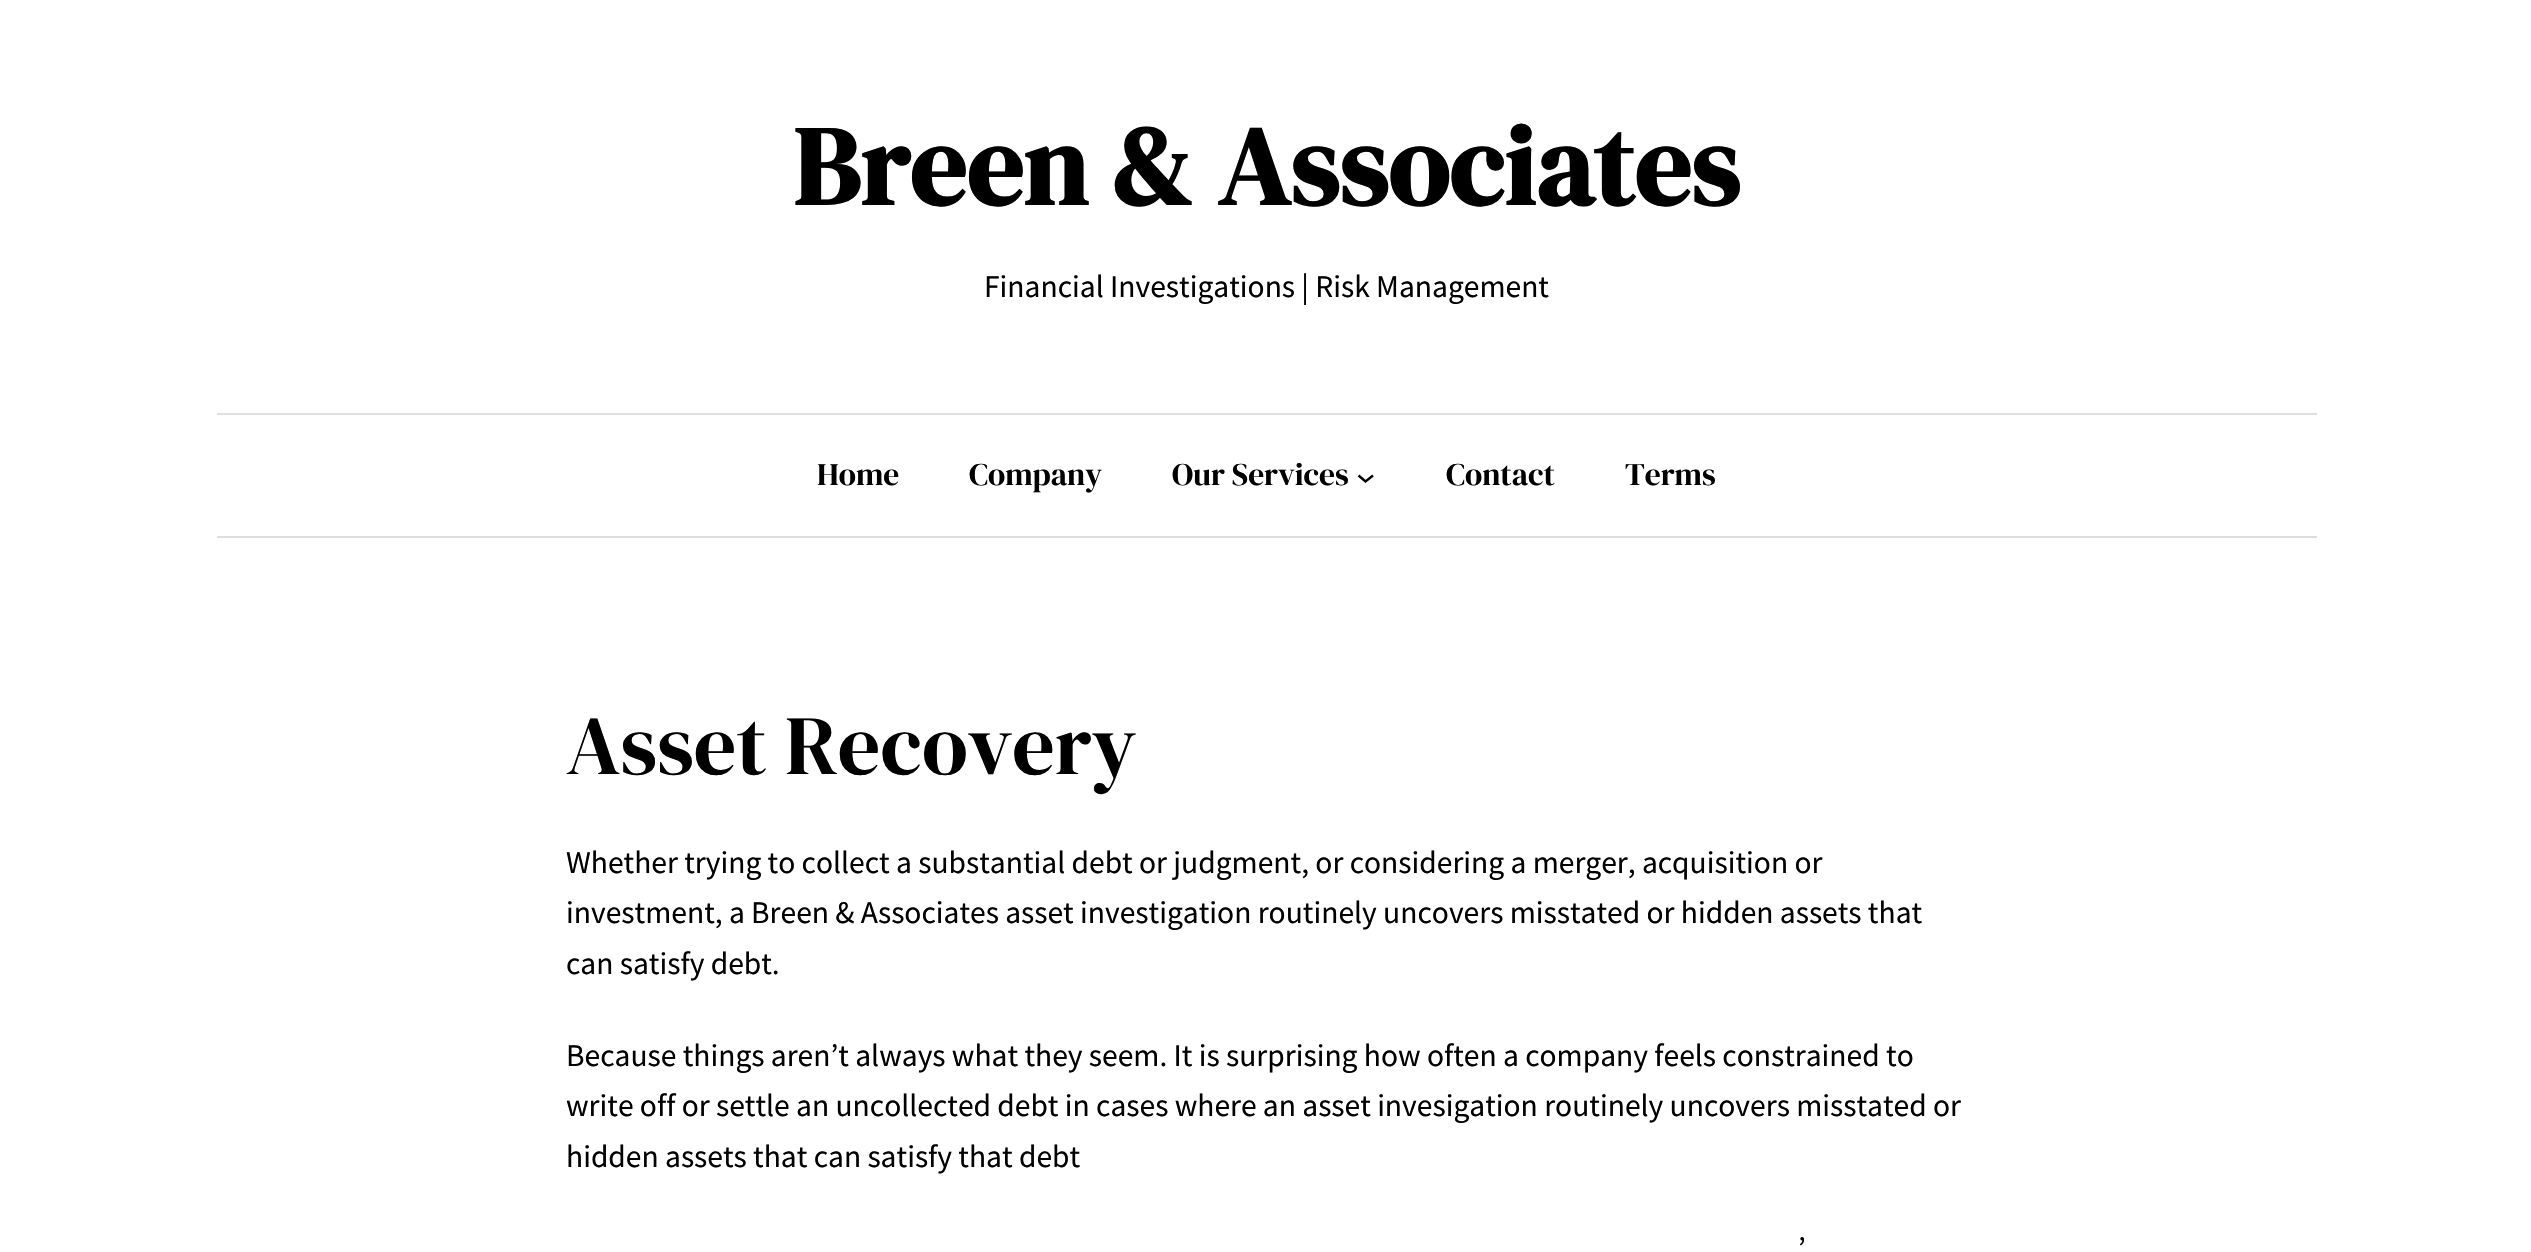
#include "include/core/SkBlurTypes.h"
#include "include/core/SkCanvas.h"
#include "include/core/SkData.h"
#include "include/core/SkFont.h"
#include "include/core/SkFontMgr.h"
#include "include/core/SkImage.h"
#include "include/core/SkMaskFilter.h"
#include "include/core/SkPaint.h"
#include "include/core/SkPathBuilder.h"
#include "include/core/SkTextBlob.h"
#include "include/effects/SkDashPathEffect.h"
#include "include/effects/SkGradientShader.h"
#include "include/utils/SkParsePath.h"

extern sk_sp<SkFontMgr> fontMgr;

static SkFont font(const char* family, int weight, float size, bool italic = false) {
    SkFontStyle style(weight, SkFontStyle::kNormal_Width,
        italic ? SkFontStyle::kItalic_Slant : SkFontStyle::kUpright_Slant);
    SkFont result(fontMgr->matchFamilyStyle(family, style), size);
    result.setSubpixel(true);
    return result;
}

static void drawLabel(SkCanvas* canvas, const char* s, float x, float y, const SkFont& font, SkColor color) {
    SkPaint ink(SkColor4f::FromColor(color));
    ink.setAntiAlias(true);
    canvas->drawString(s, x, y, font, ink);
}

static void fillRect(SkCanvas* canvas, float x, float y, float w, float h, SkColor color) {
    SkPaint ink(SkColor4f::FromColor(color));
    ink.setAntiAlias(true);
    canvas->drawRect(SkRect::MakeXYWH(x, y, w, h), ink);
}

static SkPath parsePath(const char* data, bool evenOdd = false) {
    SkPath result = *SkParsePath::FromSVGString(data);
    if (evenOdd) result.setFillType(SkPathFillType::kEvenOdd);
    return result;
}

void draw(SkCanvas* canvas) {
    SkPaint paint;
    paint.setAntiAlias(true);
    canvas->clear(0xFFFFFFFF);
    SkFont font1 = font("DM Serif Display", 700, 112);
    drawLabel(canvas, "Breen & Associates", 793, 205, font1, 0xFF000000);
    SkFont font2 = font("Source Sans Pro", 400, 31.5f);
    drawLabel(canvas, "Financial Investigations | Risk Management", 984, 297, font2, 0xFF000000);
    fillRect(canvas, 217, 413, 2100, 2, 0xFFDEDEDE);
    fillRect(canvas, 217, 536, 2100, 2, 0xFFDEDEDE);
    SkFont font3 = font("DM Serif Display", 400, 31.5f);
    drawLabel(canvas, "Home", 817, 485, font3, 0xFF000000);
    drawLabel(canvas, "Company", 969, 485, font3, 0xFF000000);
    drawLabel(canvas, "Our Services", 1172, 485, font3, 0xFF000000);
    paint.setStroke(true);
    paint.setStrokeWidth(2.4f);
    paint.setColor(0xFF000000);
    canvas->drawPath(parsePath("M1358.5 475.5L1365.5 481.5L1373 475.5"), paint);
    drawLabel(canvas, "Contact", 1446, 485, font3, 0xFF000000);
    drawLabel(canvas, "Terms", 1625, 485, font3, 0xFF000000);
    SkFont font4 = font("DM Serif Display", 400, 84);
    drawLabel(canvas, "Asset Recovery", 566, 774, font4, 0xFF000000);
    drawLabel(canvas, "Whether trying to collect a substantial debt or judgment, or considering a merger, acquisition or", 566, 873, font2, 0xFF000000);
    drawLabel(canvas, "investment, a Breen & Associates asset investigation routinely uncovers misstated or hidden assets that", 566, 923, font2, 0xFF000000);
    drawLabel(canvas, "can satisfy debt.", 566, 974, font2, 0xFF000000);
    drawLabel(canvas, "Because things aren’t always what they seem. It is surprising how often a company feels constrained to", 566, 1066, font2, 0xFF000000);
    drawLabel(canvas, "write off or settle an uncollected debt in cases where an asset invesigation routinely uncovers misstated or", 566, 1116, font2, 0xFF000000);
    drawLabel(canvas, "hidden assets that can satisfy that debt", 566, 1167, font2, 0xFF000000);
    drawLabel(canvas, "’", 1798, 1259, font2, 0xFF000000);
}
